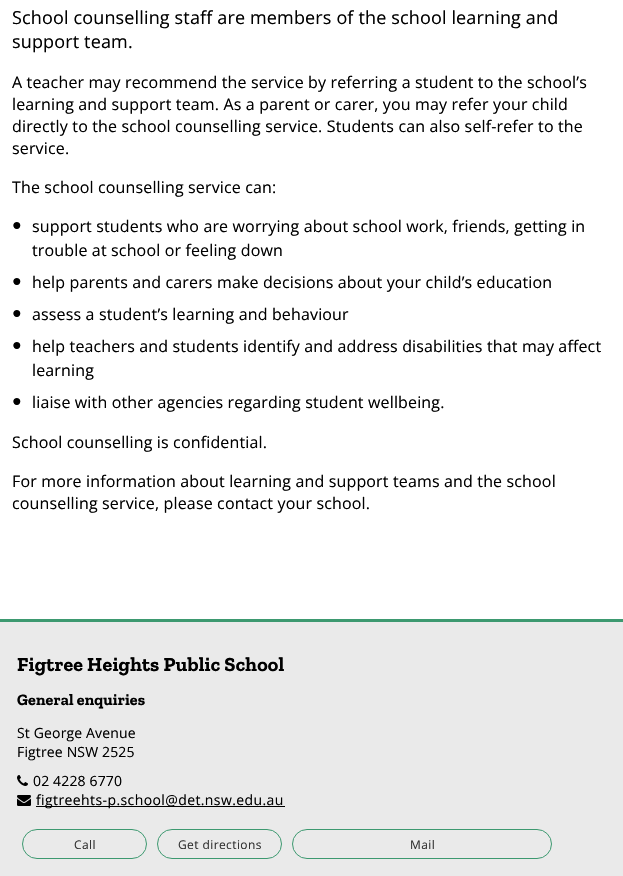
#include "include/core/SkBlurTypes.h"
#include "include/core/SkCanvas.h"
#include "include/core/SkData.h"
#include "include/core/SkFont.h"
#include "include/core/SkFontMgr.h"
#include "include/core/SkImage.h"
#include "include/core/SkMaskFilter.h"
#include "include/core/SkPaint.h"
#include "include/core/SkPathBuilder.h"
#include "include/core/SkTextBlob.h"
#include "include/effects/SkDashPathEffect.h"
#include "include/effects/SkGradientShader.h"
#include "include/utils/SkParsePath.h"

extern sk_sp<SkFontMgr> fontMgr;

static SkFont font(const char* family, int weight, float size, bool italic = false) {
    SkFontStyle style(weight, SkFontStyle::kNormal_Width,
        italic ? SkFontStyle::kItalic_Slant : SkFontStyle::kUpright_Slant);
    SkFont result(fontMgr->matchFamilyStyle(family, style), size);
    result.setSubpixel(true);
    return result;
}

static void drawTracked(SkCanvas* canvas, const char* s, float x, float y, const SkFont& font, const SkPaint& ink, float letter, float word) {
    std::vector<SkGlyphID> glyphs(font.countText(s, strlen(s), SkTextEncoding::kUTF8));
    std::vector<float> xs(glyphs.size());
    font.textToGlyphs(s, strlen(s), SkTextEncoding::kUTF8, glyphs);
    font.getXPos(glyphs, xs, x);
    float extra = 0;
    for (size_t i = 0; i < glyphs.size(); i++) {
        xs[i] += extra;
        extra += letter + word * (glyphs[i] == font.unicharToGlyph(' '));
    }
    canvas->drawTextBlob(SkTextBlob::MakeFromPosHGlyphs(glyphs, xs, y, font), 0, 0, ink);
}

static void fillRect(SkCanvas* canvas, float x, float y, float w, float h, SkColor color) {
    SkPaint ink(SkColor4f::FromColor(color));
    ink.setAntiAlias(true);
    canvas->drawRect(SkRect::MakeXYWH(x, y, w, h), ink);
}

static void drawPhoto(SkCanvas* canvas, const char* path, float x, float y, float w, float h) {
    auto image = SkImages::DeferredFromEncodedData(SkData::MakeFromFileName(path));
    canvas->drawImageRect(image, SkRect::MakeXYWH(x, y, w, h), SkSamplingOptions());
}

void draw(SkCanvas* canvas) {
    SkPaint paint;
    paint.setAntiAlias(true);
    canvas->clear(0xFFFFFFFF);
    SkFont font1 = font("Open Sans", 400, 18);
    paint.setColor(0xFF000000);
    drawTracked(canvas, "School counselling staff are members of the school learning and", 12, 24, font1, paint, 0.15f, 0);
    drawTracked(canvas, "support team.", 12, 48, font1, paint, 0.15f, 0);
    SkFont font2 = font("Open Sans", 400, 16);
    drawTracked(canvas, "A teacher may recommend the service by referring a student to the school’s", 12, 88, font2, paint, 0.15f, 0);
    drawTracked(canvas, "learning and support team. As a parent or carer, you may refer your child", 12, 110, font2, paint, 0.15f, 0);
    drawTracked(canvas, "directly to the school counselling service. Students can also self-refer to the", 12, 132, font2, paint, 0.15f, 0);
    drawTracked(canvas, "service.", 12, 154, font2, paint, 0.15f, 0);
    drawTracked(canvas, "The school counselling service can:", 12, 193, font2, paint, 0.15f, 0);
    SkFont font3 = font("Liberation Sans", 400, 16);
    drawTracked(canvas, "●", 12, 230, font3, paint, 0.15f, 0);
    drawTracked(canvas, "support students who are worrying about school work, friends, getting in", 32, 232, font2, paint, 0.15f, 0);
    drawTracked(canvas, "trouble at school or feeling down", 32, 256, font2, paint, 0.15f, 0);
    drawTracked(canvas, "●", 12, 286, font3, paint, 0.15f, 0);
    drawTracked(canvas, "help parents and carers make decisions about your child’s education", 32, 288, font2, paint, 0.15f, 0);
    drawTracked(canvas, "●", 12, 318, font3, paint, 0.15f, 0);
    drawTracked(canvas, "assess a student’s learning and behaviour", 32, 320, font2, paint, 0.15f, 0);
    drawTracked(canvas, "●", 12, 350, font3, paint, 0.15f, 0);
    drawTracked(canvas, "help teachers and students identify and address disabilities that may affect", 32, 352, font2, paint, 0.15f, 0);
    drawTracked(canvas, "learning", 32, 376, font2, paint, 0.15f, 0);
    drawTracked(canvas, "●", 12, 406, font3, paint, 0.15f, 0);
    drawTracked(canvas, "liaise with other agencies regarding student wellbeing.", 32, 408, font2, paint, 0.15f, 0);
    drawTracked(canvas, "School counselling is confidential.", 12, 448, font2, paint, 0.15f, 0);
    drawTracked(canvas, "For more information about learning and support teams and the school", 12, 487, font2, paint, 0.15f, 0);
    drawTracked(canvas, "counselling service, please contact your school.", 12, 509, font2, paint, 0.15f, 0);
    fillRect(canvas, 0, 622, 623, 254, 0xFFEAEAEA);
    fillRect(canvas, 0, 619, 623, 3, 0xFF3D9970);
    SkFont font4 = font("Zilla Slab", 700, 20);
    drawTracked(canvas, "Figtree Heights Public School", 17, 671, font4, paint, 0.2f, 0);
    SkFont font5 = font("Zilla Slab", 700, 16);
    drawTracked(canvas, "General enquiries", 17, 705, font5, paint, 0.15f, 0);
    SkFont font6 = font("Open Sans", 400, 14);
    drawTracked(canvas, "St George Avenue", 17, 738, font6, paint, 0.15f, 0);
    drawTracked(canvas, "Figtree NSW 2525", 17, 757, font6, paint, 0.15f, 0);
    drawPhoto(canvas, "assets/img1.png", 17, 775, 11, 11);
    drawTracked(canvas, "02 4228 6770", 33, 786, font6, paint, 0.15f, 0);
    drawPhoto(canvas, "assets/img2.png", 17, 795, 14, 11);
    fillRect(canvas, 36, 806, 249, 1, 0xFF000000);
    drawTracked(canvas, "figtreehts-p.school@det.nsw.edu.au", 36, 805, font6, paint, 0.4f, 0);
    paint.setStroke(true);
    paint.setStrokeWidth(1);
    paint.setColor(0xFF3D9970);
    canvas->drawRoundRect(SkRect::MakeXYWH(22.5f, 829.5f, 124, 29), 14.5f, 14.5f, paint);
    SkFont font7 = font("Open Sans", 400, 12);
    paint.setStroke(false);
    paint.setColor(0xFF333333);
    drawTracked(canvas, "Call", 74, 849, font7, paint, 0.4f, 0);
    paint.setStroke(true);
    paint.setColor(0xFF3D9970);
    canvas->drawRoundRect(SkRect::MakeXYWH(157.5f, 829.5f, 124, 29), 14.5f, 14.5f, paint);
    paint.setStroke(false);
    paint.setColor(0xFF333333);
    drawTracked(canvas, "Get directions", 178, 849, font7, paint, 0.4f, 0);
    paint.setStroke(true);
    paint.setColor(0xFF3D9970);
    canvas->drawRoundRect(SkRect::MakeXYWH(292.5f, 829.5f, 259, 29), 14.5f, 14.5f, paint);
    paint.setStroke(false);
    paint.setColor(0xFF333333);
    drawTracked(canvas, "Mail", 410, 849, font7, paint, 0.4f, 0);
}
